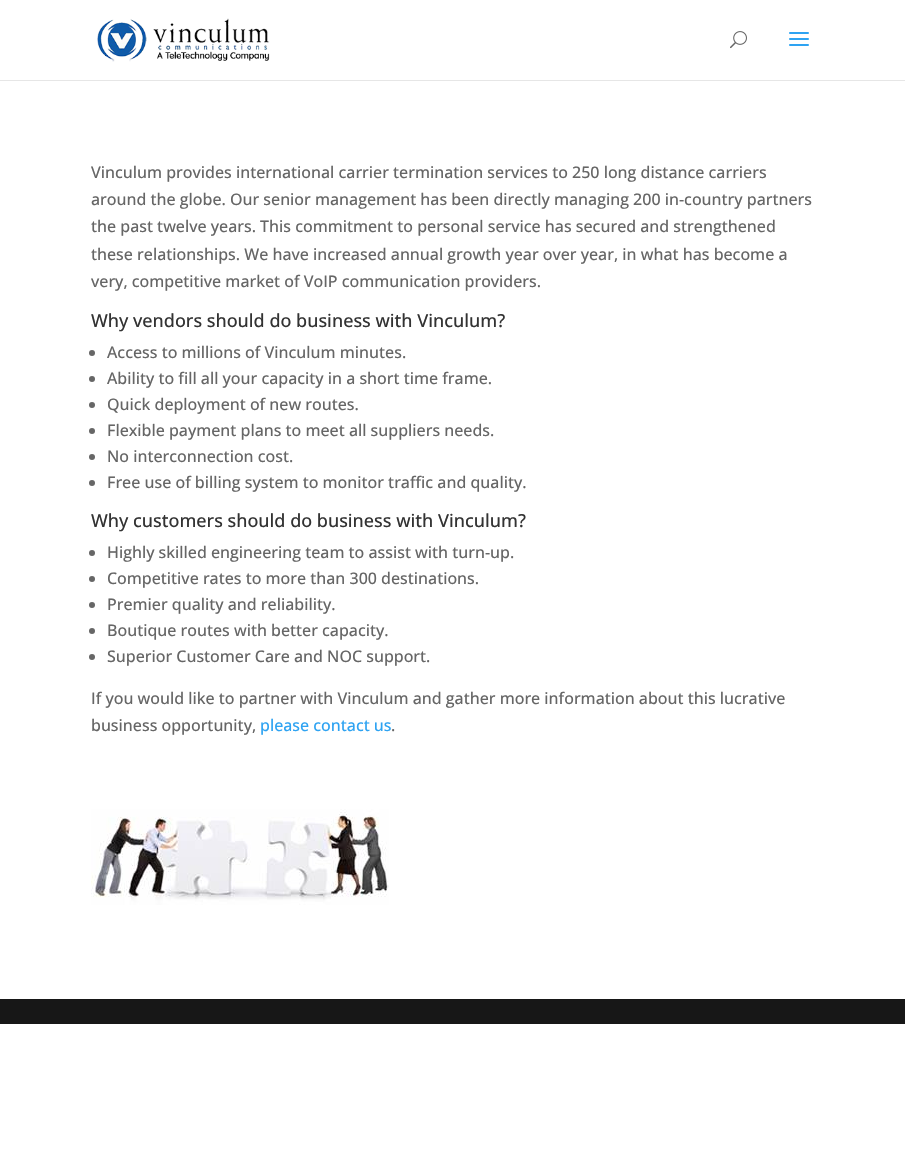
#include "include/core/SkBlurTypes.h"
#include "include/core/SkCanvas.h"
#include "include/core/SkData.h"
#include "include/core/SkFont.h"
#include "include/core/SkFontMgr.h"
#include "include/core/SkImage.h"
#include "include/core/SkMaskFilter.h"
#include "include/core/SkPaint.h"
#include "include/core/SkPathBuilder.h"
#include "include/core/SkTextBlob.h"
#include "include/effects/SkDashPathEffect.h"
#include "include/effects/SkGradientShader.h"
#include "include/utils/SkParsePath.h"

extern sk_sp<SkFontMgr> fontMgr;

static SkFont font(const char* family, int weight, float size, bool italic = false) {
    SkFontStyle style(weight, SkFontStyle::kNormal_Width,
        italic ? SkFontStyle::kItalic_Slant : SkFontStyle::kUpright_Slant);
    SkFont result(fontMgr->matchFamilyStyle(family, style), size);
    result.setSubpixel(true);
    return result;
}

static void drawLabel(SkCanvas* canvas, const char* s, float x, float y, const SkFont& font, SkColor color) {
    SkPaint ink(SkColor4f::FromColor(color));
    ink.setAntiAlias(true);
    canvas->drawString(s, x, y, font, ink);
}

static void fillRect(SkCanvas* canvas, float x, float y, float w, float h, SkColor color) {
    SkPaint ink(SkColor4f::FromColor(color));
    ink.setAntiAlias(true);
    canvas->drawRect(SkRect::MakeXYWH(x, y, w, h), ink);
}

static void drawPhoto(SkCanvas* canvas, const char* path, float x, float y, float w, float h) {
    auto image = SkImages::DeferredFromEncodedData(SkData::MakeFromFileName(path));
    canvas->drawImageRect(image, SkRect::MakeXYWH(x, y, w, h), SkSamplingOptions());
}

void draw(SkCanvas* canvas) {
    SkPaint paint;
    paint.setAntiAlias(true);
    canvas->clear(0xFFFFFFFF);
    fillRect(canvas, 0, 80, 905, 1, 0xFFE6E6E6);
    drawPhoto(canvas, "assets/img1.png", 97, 18, 173, 44);
    drawPhoto(canvas, "assets/img2.png", 730, 31, 17, 18);
    drawPhoto(canvas, "assets/img3.png", 789, 32, 20, 14);
    SkFont font1 = font("Open Sans", 500, 16);
    drawLabel(canvas, "Vinculum provides international carrier termination services to 250 long distance carriers", 91, 178, font1, 0xFF666666);
    drawLabel(canvas, "around the globe. Our senior management has been directly managing 200 in-country partners", 91, 205, font1, 0xFF666666);
    drawLabel(canvas, "the past twelve years. This commitment to personal service has secured and strengthened", 91, 232, font1, 0xFF666666);
    drawLabel(canvas, "these relationships. We have increased annual growth year over year, in what has become a", 91, 260, font1, 0xFF666666);
    drawLabel(canvas, "very, competitive market of VoIP communication providers.", 91, 287, font1, 0xFF666666);
    SkFont font2 = font("Open Sans", 500, 18);
    drawLabel(canvas, "Why vendors should do business with Vinculum?", 91, 327, font2, 0xFF333333);
    paint.setColor(0xFF666666);
    canvas->drawCircle(92, 353, 3, paint);
    drawLabel(canvas, "Access to millions of Vinculum minutes.", 107, 358, font1, 0xFF666666);
    canvas->drawCircle(92, 379, 3, paint);
    drawLabel(canvas, "Ability to fill all your capacity in a short time frame.", 107, 384, font1, 0xFF666666);
    canvas->drawCircle(92, 405, 3, paint);
    drawLabel(canvas, "Quick deployment of new routes.", 107, 410, font1, 0xFF666666);
    canvas->drawCircle(92, 431, 3, paint);
    drawLabel(canvas, "Flexible payment plans to meet all suppliers needs.", 107, 436, font1, 0xFF666666);
    canvas->drawCircle(92, 457, 3, paint);
    drawLabel(canvas, "No interconnection cost.", 107, 462, font1, 0xFF666666);
    canvas->drawCircle(92, 483, 3, paint);
    drawLabel(canvas, "Free use of billing system to monitor traffic and quality.", 107, 488, font1, 0xFF666666);
    drawLabel(canvas, "Why customers should do business with Vinculum?", 91, 527, font2, 0xFF333333);
    canvas->drawCircle(92, 553, 3, paint);
    drawLabel(canvas, "Highly skilled engineering team to assist with turn-up.", 107, 558, font1, 0xFF666666);
    canvas->drawCircle(92, 579, 3, paint);
    drawLabel(canvas, "Competitive rates to more than 300 destinations.", 107, 584, font1, 0xFF666666);
    canvas->drawCircle(92, 605, 3, paint);
    drawLabel(canvas, "Premier quality and reliability.", 107, 610, font1, 0xFF666666);
    canvas->drawCircle(92, 631, 3, paint);
    drawLabel(canvas, "Boutique routes with better capacity.", 107, 636, font1, 0xFF666666);
    canvas->drawCircle(92, 657, 3, paint);
    drawLabel(canvas, "Superior Customer Care and NOC support.", 107, 662, font1, 0xFF666666);
    drawLabel(canvas, "If you would like to partner with Vinculum and gather more information about this lucrative", 91, 704, font1, 0xFF666666);
    drawLabel(canvas, "business opportunity,", 91, 731, font1, 0xFF666666);
    drawLabel(canvas, "please contact us", 260, 731, font1, 0xFF2EA3F2);
    drawLabel(canvas, ".", 391, 731, font1, 0xFF666666);
    drawPhoto(canvas, "assets/img4.png", 91, 809, 298, 96);
    fillRect(canvas, 0, 999, 905, 25, 0xFF171717);
}
